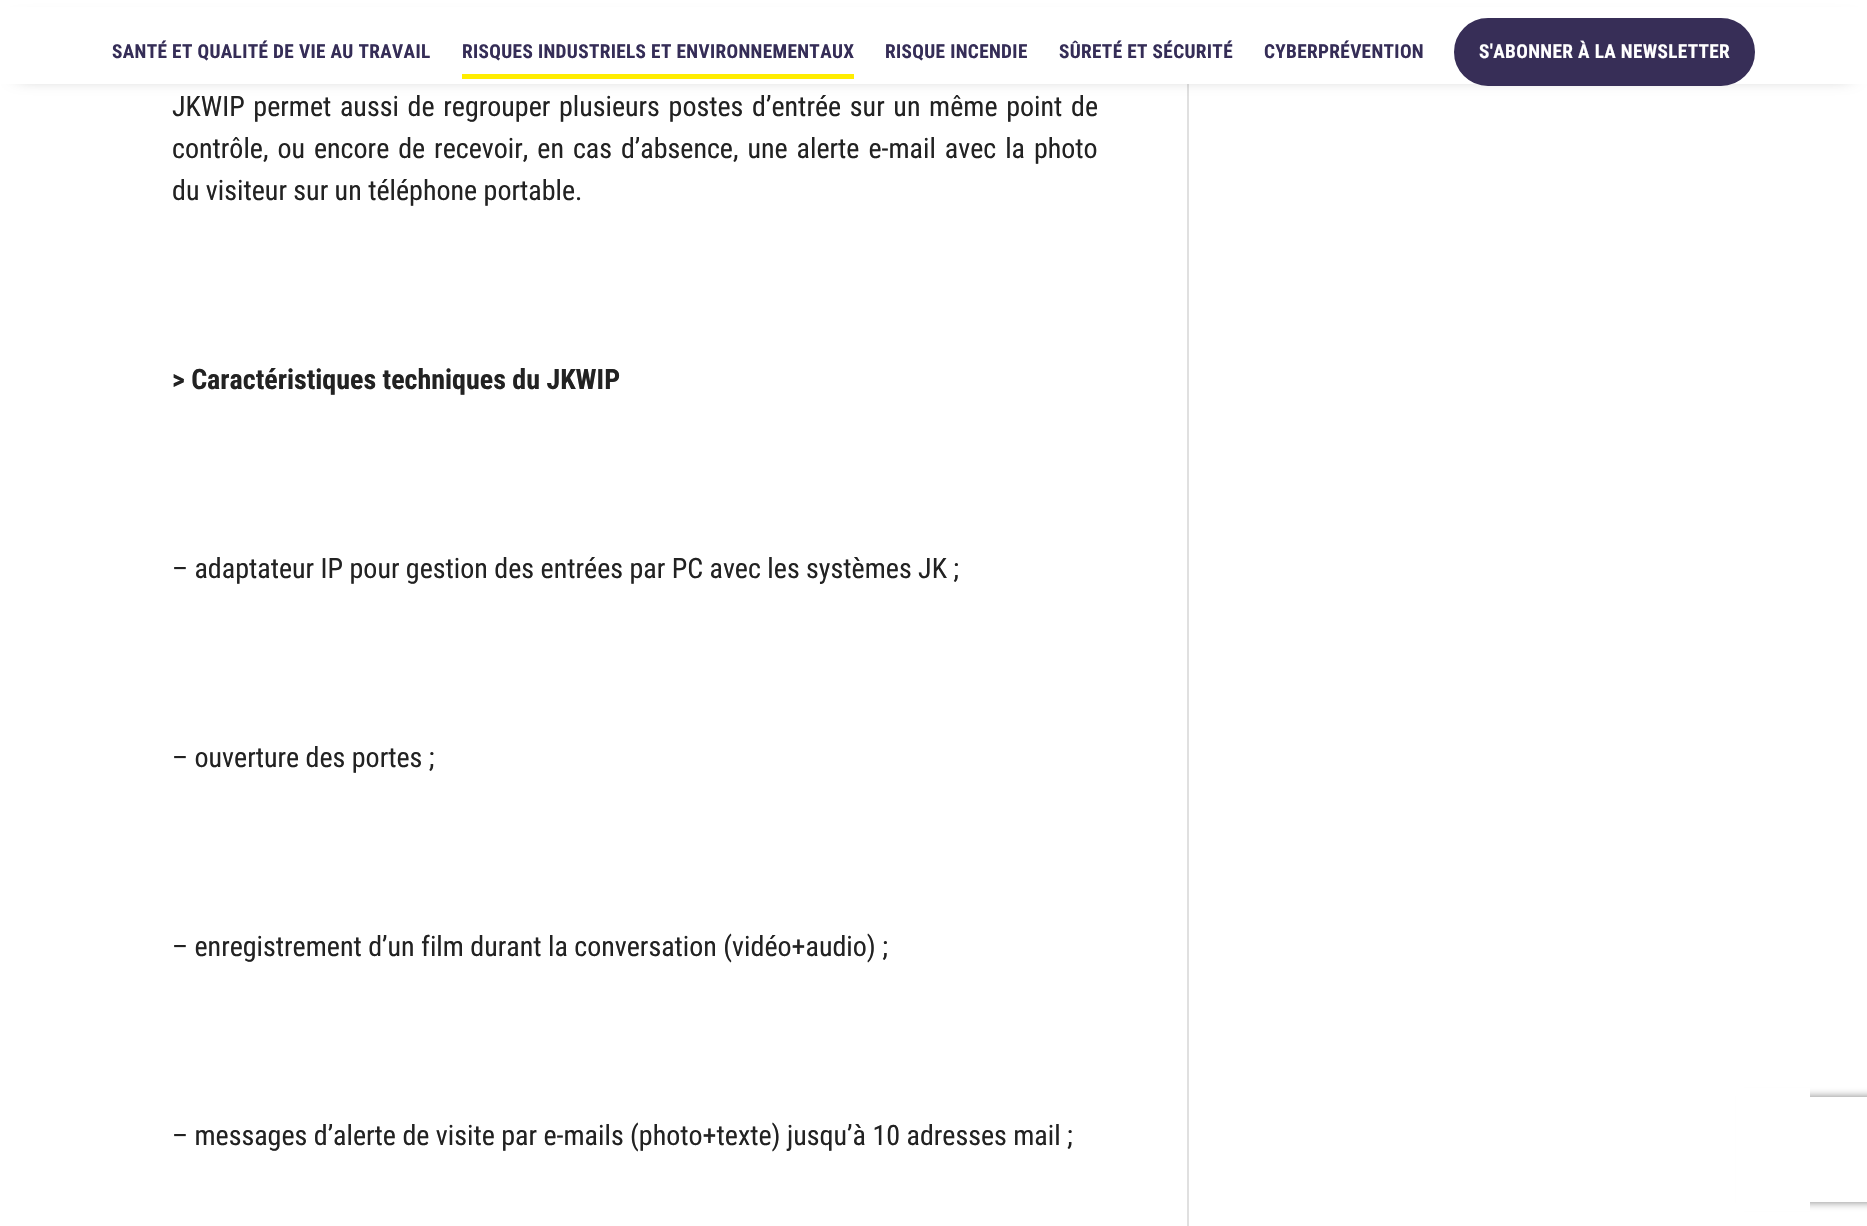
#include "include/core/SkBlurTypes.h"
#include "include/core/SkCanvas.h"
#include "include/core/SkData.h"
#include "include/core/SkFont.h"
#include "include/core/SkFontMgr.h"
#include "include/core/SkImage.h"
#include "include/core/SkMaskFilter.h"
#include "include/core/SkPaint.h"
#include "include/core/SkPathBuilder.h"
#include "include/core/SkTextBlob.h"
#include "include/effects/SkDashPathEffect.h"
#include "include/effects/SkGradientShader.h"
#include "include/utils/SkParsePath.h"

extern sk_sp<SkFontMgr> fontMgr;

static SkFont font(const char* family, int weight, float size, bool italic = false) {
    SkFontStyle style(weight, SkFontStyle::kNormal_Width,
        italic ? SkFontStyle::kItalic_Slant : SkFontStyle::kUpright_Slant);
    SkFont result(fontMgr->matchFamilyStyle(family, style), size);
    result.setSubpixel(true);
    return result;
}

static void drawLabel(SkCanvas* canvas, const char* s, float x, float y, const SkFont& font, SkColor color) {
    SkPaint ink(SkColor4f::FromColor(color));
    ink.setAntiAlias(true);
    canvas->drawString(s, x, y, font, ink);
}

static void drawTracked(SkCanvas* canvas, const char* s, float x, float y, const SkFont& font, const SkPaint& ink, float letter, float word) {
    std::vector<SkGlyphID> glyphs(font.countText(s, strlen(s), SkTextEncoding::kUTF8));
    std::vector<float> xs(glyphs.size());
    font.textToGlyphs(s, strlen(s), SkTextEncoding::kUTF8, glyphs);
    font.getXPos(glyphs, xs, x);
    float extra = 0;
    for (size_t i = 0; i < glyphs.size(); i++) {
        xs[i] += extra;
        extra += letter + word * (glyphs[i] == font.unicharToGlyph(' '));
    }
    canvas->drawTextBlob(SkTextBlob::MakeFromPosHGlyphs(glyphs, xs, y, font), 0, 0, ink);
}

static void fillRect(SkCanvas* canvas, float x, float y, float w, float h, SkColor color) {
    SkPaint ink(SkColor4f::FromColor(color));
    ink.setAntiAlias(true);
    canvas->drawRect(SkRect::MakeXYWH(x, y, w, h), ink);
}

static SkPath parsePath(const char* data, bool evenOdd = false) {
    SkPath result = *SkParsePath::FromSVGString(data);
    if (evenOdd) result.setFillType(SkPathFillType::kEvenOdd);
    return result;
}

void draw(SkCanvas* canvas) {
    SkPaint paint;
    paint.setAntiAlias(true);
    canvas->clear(0xFFFFFFFF);
    fillRect(canvas, 1187, 84, 2, 1142, 0xFFE0E0E0);
    paint.setColor(0x80000000);
    paint.setMaskFilter(SkMaskFilter::MakeBlur(kNormal_SkBlurStyle, 9));
    canvas->drawRect(SkRect::MakeXYWH(18, 25, 1832, 49), paint);
    paint.setMaskFilter(nullptr);
    fillRect(canvas, 0, 7, 1867, 77, 0xFFFFFFFF);
    SkFont font1 = font("Roboto Condensed", 700, 19.25f);
    paint.setColor(0xFF352D57);
    drawTracked(canvas, "SANTÉ ET QUALITÉ DE VIE AU TRAVAIL", 112, 58, font1, paint, 0.35f, 0);
    drawTracked(canvas, "RISQUES INDUSTRIELS ET ENVIRONNEMENTAUX", 462, 58, font1, paint, 0.35f, 0);
    fillRect(canvas, 462, 74, 392, 5, 0xFFFFED00);
    drawTracked(canvas, "RISQUE INCENDIE", 885, 58, font1, paint, 0.35f, 0);
    drawTracked(canvas, "SÛRETÉ ET SÉCURITÉ", 1059, 58, font1, paint, 0.35f, 0);
    drawTracked(canvas, "CYBERPRÉVENTION", 1264, 58, font1, paint, 0.35f, 0);
    paint.setColor(0xFF372E57);
    canvas->drawRoundRect(SkRect::MakeXYWH(1456, 20, 297, 64), 32, 32, paint);
    paint.setStroke(true);
    paint.setStrokeWidth(4);
    canvas->drawRoundRect(SkRect::MakeXYWH(1456, 20, 297, 64), 32, 32, paint);
    paint.setStroke(false);
    paint.setColor(0xFFFFFFFF);
    drawTracked(canvas, "S'ABONNER À LA NEWSLETTER", 1479, 58, font1, paint, 0.35f, 0);
    canvas->save();
    canvas->clipPath(parsePath("M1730 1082H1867V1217H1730ZM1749 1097H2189C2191 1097 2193 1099 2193 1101V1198C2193 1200 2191 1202 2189 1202H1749C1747 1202 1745 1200 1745 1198V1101C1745 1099 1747 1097 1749 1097Z", true), true);
    paint.setColor(0xFF808080);
    paint.setMaskFilter(SkMaskFilter::MakeBlur(kNormal_SkBlurStyle, 4.5f));
    canvas->drawRoundRect(SkRect::MakeXYWH(1745, 1097, 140, 105), 4, 4, paint);
    paint.setMaskFilter(nullptr);
    canvas->restore();
    fillRect(canvas, 1736, 1088, 74, 123, 0xFFFFFFFF);
    SkFont font2 = font("Roboto Condensed", 400, 28);
    paint.setColor(0xFF222222);
    drawTracked(canvas, "JKWIP permet aussi de regrouper plusieurs postes d’entrée sur un même point de", 172, 116, font2, paint, 0, 2.25f);
    drawTracked(canvas, "contrôle, ou encore de recevoir, en cas d’absence, une alerte e-mail avec la photo", 172, 158, font2, paint, 0, 2.5f);
    drawLabel(canvas, "du visiteur sur un téléphone portable.", 172, 200, font2, 0xFF222222);
    SkFont font3 = font("Roboto Condensed", 700, 28);
    drawLabel(canvas, "> Caractéristiques techniques du JKWIP", 172, 389, font3, 0xFF222222);
    drawLabel(canvas, "– adaptateur IP pour gestion des entrées par PC avec les systèmes JK ;", 172, 578, font2, 0xFF222222);
    drawLabel(canvas, "– ouverture des portes ;", 172, 767, font2, 0xFF222222);
    drawLabel(canvas, "– enregistrement d’un film durant la conversation (vidéo+audio) ;", 172, 956, font2, 0xFF222222);
    drawLabel(canvas, "– messages d’alerte de visite par e-mails (photo+texte) jusqu’à 10 adresses mail ;", 172, 1145, font2, 0xFF222222);
}
